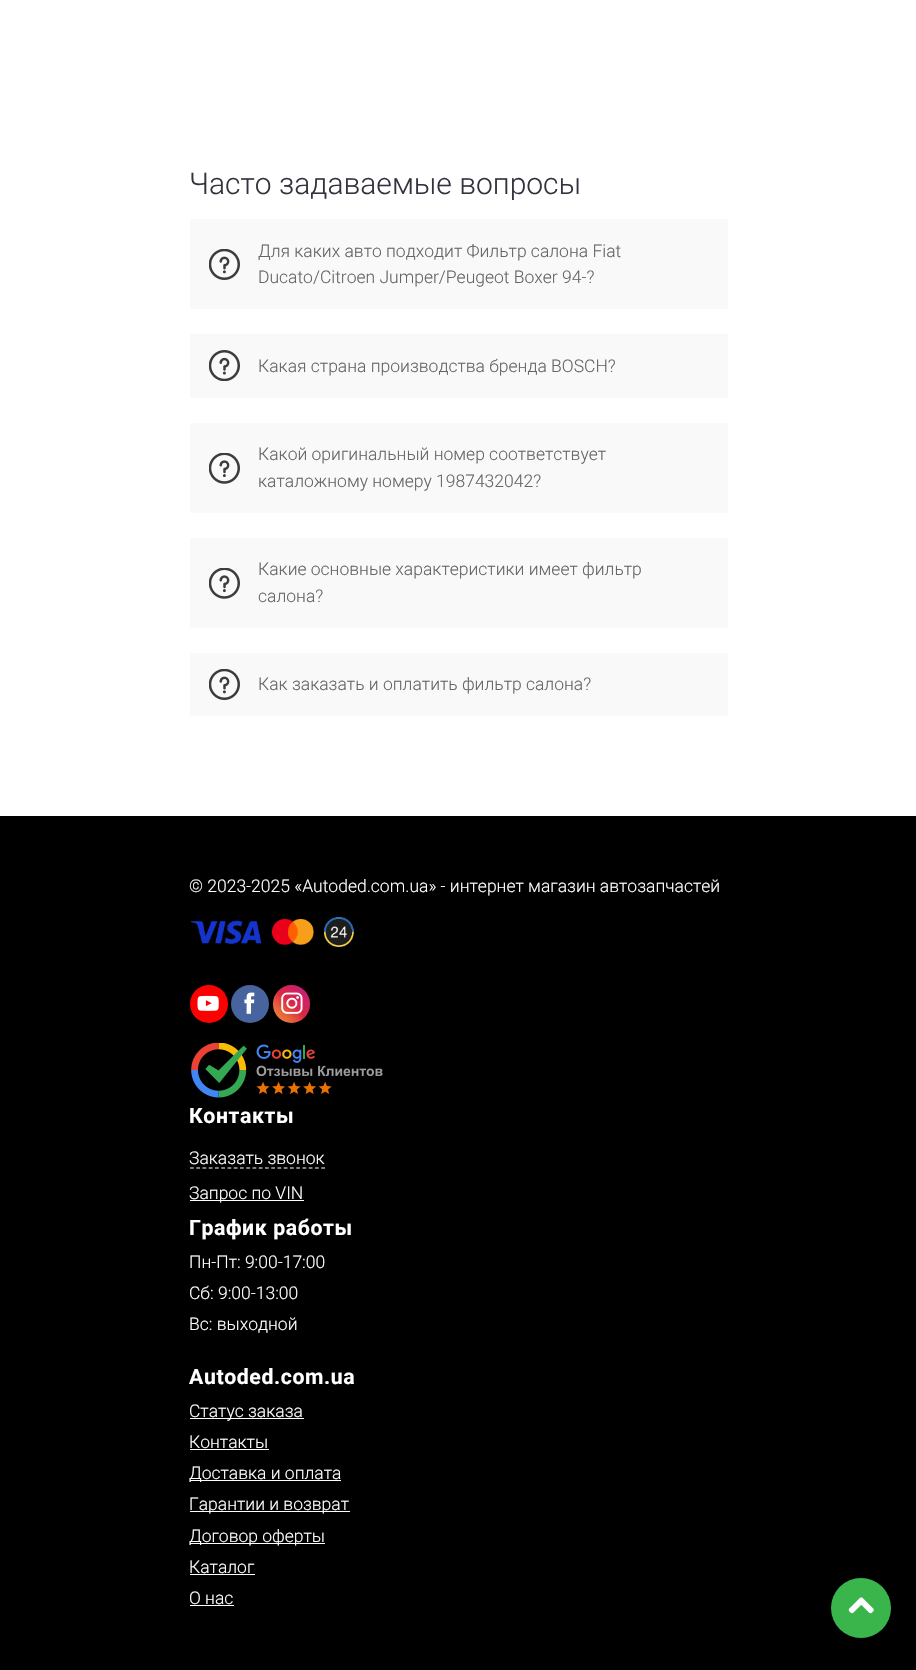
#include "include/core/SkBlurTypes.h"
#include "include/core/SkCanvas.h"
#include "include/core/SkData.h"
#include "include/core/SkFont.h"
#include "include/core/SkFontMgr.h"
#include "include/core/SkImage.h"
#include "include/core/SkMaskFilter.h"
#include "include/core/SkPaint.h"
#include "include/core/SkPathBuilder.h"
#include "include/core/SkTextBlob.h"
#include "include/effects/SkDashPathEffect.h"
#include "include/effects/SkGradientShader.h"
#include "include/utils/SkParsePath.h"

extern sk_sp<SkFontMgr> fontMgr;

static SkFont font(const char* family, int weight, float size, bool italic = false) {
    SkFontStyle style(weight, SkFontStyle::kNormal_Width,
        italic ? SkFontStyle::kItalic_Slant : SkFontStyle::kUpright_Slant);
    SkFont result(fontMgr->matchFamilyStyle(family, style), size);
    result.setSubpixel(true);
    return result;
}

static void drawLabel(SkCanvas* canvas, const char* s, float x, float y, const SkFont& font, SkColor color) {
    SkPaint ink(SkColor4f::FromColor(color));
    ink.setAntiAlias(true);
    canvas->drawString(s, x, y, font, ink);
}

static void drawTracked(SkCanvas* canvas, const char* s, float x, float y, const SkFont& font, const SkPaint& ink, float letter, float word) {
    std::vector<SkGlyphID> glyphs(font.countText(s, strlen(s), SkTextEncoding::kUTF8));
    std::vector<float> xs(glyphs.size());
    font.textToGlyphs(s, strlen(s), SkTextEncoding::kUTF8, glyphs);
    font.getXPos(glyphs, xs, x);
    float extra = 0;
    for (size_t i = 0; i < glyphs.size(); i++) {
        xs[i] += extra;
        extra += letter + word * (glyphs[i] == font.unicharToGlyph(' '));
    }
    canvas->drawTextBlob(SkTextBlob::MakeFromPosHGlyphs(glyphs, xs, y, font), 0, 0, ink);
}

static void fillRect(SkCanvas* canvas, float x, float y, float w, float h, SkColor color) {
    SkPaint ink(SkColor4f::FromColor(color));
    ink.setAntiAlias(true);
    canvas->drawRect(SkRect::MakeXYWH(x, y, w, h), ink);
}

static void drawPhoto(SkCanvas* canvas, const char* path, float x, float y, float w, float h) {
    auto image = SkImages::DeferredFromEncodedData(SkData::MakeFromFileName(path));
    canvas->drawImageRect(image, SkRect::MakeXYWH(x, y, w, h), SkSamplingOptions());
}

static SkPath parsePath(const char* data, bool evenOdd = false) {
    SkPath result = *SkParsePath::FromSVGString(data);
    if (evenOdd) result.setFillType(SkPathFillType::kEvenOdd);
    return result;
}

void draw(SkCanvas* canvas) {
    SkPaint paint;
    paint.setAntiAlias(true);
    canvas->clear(0xFFFFFFFF);
    SkFont font1 = font("Roboto", 300, 30);
    drawLabel(canvas, "Часто задаваемые вопросы", 189, 194, font1, 0xFF33333F);
    fillRect(canvas, 190, 219, 538, 90, 0xFFF9F9F9);
    drawPhoto(canvas, "assets/img1.png", 209, 249, 31, 31);
    SkFont font2 = font("Roboto", 300, 17.5f);
    drawLabel(canvas, "Для каких авто подходит Фильтр салона Fiat", 258, 257, font2, 0xFF666666);
    drawLabel(canvas, "Ducato/Citroen Jumper/Peugeot Boxer 94-?", 258, 283, font2, 0xFF666666);
    fillRect(canvas, 190, 334, 538, 64, 0xFFF9F9F9);
    drawPhoto(canvas, "assets/img2.png", 209, 350, 31, 31);
    drawLabel(canvas, "Какая страна производства бренда BOSCH?", 258, 372, font2, 0xFF666666);
    fillRect(canvas, 190, 423, 538, 90, 0xFFF9F9F9);
    drawPhoto(canvas, "assets/img3.png", 209, 453, 31, 31);
    drawLabel(canvas, "Какой оригинальный номер соответствует", 258, 460, font2, 0xFF666666);
    drawLabel(canvas, "каталожному номеру 1987432042?", 258, 487, font2, 0xFF666666);
    fillRect(canvas, 190, 538, 538, 90, 0xFFF9F9F9);
    drawPhoto(canvas, "assets/img3.png", 209, 568, 31, 31);
    drawLabel(canvas, "Какие основные характеристики имеет фильтр", 258, 575, font2, 0xFF666666);
    drawLabel(canvas, "салона?", 258, 602, font2, 0xFF666666);
    fillRect(canvas, 190, 653, 538, 63, 0xFFF9F9F9);
    drawPhoto(canvas, "assets/img1.png", 209, 669, 31, 31);
    drawLabel(canvas, "Как заказать и оплатить фильтр салона?", 258, 690, font2, 0xFF666666);
    fillRect(canvas, 0, 816, 916, 854, 0xFF000000);
    drawLabel(canvas, "© 2023-2025 «Autoded.com.ua» - интернет магазин автозапчастей", 189, 892, font2, 0xFFFFFFFF);
    drawPhoto(canvas, "assets/img4.png", 190, 917, 164, 30);
    paint.setColor(0xFFFF0000);
    canvas->drawCircle(209, 1004, 19, paint);
    drawPhoto(canvas, "assets/img5.png", 197, 995, 22, 16);
    paint.setColor(0xFF48649E);
    canvas->drawCircle(250, 1004, 19, paint);
    drawPhoto(canvas, "assets/img6.png", 244, 992, 11, 22);
    {
        const SkColor colors[] = {0xFFF09433, 0xFFE6683C, 0xFFDC2743, 0xFFCC2366, 0xFFBC1888};
        const float stops[] = {0, 0.25f, 0.5f, 0.75f, 1};
        const SkPoint ends[] = {{273, 1023}, {310, 985}};
        paint.setShader(SkGradientShader::MakeLinear(ends, colors, stops, 5, SkTileMode::kClamp));
        paint.setAlpha(255);
    }
    canvas->drawRoundRect(SkRect::MakeXYWH(273, 985, 37, 38), 18.5f, 18.5f, paint);
    drawPhoto(canvas, "assets/img7.png", 281, 992, 22, 22);
    drawPhoto(canvas, "assets/img8.png", 191, 1043, 192, 55);
    SkFont font3 = font("Roboto", 700, 21.25f);
    paint.setShader(nullptr);
    paint.setColor(0xFFFFFFFF);
    drawTracked(canvas, "Контакты", 189, 1123, font3, paint, 0.6f, 0);
    drawLabel(canvas, "Заказать звонок", 189, 1164, font2, 0xFFFFFFFF);
    paint.setStroke(true);
    paint.setStrokeWidth(1.2f);
    paint.setPathEffect(SkDashPathEffect::Make({{3.75f, 2.5f}}, 0));
    canvas->drawPath(parsePath("M190 1168H325"), paint);
    paint.setPathEffect(nullptr);
    fillRect(canvas, 190, 1200, 114, 1, 0xFFFFFFFF);
    drawLabel(canvas, "Запрос по VIN", 189, 1199, font2, 0xFFFFFFFF);
    paint.setStroke(false);
    drawTracked(canvas, "График работы", 189, 1235, font3, paint, 0.6f, 0);
    drawLabel(canvas, "Пн-Пт: 9:00-17:00", 189, 1268, font2, 0xFFFFFFFF);
    drawLabel(canvas, "Сб: 9:00-13:00", 189, 1299, font2, 0xFFFFFFFF);
    drawLabel(canvas, "Вс: выходной", 189, 1330, font2, 0xFFFFFFFF);
    drawTracked(canvas, "Autoded.com.ua", 189, 1384, font3, paint, 0.6f, 0);
    fillRect(canvas, 190, 1418, 114, 1, 0xFFFFFFFF);
    drawLabel(canvas, "Статус заказа", 189, 1417, font2, 0xFFFFFFFF);
    drawLabel(canvas, "Контакты", 189, 1448, font2, 0xFFFFFFFF);
    fillRect(canvas, 190, 1449, 79, 1, 0xFFFFFFFF);
    fillRect(canvas, 190, 1480, 151, 1, 0xFFFFFFFF);
    drawLabel(canvas, "Доставка и оплата", 189, 1479, font2, 0xFFFFFFFF);
    fillRect(canvas, 190, 1511, 160, 1, 0xFFFFFFFF);
    drawLabel(canvas, "Гарантии и возврат", 189, 1510, font2, 0xFFFFFFFF);
    fillRect(canvas, 190, 1543, 135, 1, 0xFFFFFFFF);
    drawLabel(canvas, "Договор оферты", 189, 1542, font2, 0xFFFFFFFF);
    drawLabel(canvas, "Каталог", 189, 1573, font2, 0xFFFFFFFF);
    fillRect(canvas, 190, 1574, 65, 1, 0xFFFFFFFF);
    drawLabel(canvas, "О нас", 189, 1604, font2, 0xFFFFFFFF);
    fillRect(canvas, 190, 1605, 44, 1, 0xFFFFFFFF);
    paint.setColor(0xFF3AB54B);
    canvas->drawCircle(861, 1608, 30, paint);
    drawPhoto(canvas, "assets/img9.png", 848, 1597, 26, 17);
}
